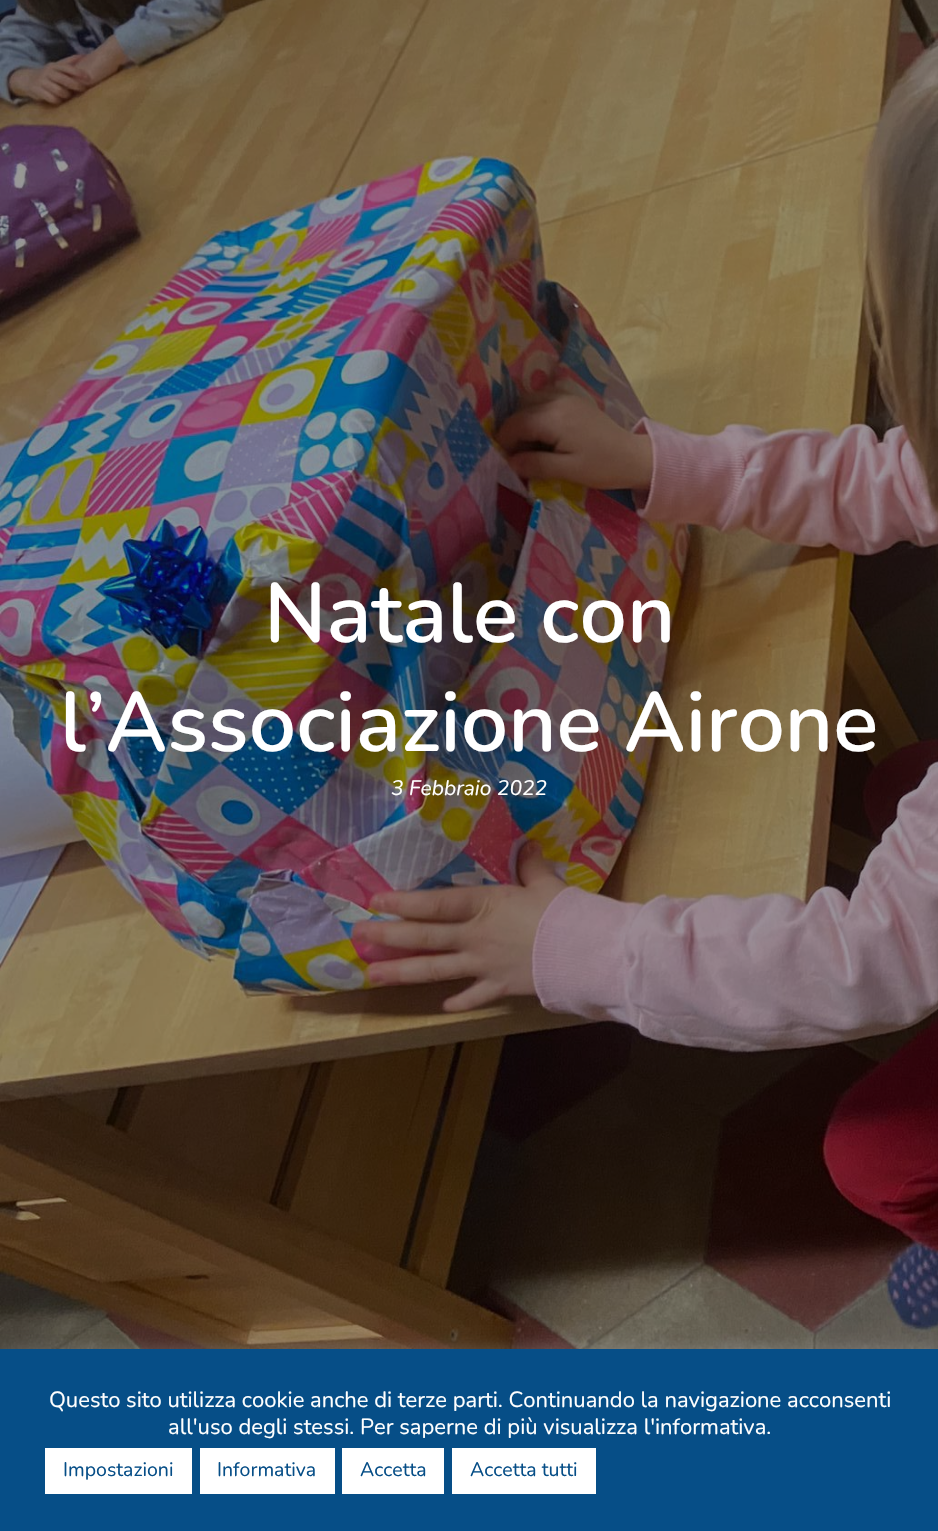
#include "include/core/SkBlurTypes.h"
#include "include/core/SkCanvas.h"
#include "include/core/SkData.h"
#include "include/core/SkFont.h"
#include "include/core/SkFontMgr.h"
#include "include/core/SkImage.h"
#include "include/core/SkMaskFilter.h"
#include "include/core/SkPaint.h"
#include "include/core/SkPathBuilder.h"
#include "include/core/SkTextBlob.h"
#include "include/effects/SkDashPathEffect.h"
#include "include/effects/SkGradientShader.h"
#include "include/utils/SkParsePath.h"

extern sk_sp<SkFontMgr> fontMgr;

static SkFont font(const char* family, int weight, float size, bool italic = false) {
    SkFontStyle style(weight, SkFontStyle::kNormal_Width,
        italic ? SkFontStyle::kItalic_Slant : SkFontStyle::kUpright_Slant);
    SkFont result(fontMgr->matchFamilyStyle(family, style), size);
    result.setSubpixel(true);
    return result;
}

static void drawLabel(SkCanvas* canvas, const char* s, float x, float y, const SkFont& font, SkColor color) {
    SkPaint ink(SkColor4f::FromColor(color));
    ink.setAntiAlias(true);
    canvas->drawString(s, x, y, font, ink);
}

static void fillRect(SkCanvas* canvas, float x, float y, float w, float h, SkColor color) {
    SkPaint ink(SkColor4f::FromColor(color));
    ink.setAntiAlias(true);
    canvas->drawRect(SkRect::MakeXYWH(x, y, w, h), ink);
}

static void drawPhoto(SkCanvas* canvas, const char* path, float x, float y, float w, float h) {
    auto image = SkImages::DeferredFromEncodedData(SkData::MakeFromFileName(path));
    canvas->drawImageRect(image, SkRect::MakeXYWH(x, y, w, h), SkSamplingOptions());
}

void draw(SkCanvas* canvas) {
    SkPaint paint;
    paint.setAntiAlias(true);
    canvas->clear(0xFFFFFFFF);
    drawPhoto(canvas, "assets/img1.png", 0, 0, 938, 1349);
    SkFont font1 = font("Nunito", 600, 84);
    drawLabel(canvas, "Natale con", 264, 642, font1, 0xFFFFFFFF);
    drawLabel(canvas, "l’Associazione Airone", 60, 751, font1, 0xFFFFFFFF);
    SkFont font2 = font("Nunito", 400, 21, true);
    drawLabel(canvas, "3 Febbraio 2022", 391, 795, font2, 0xFFFFFFFF);
    paint.setColor(0x4DACABAB);
    paint.setMaskFilter(SkMaskFilter::MakeBlur(kNormal_SkBlurStyle, 7.5f));
    canvas->drawRect(SkRect::MakeXYWH(0, 1347, 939, 183), paint);
    paint.setMaskFilter(nullptr);
    fillRect(canvas, 0, 1349, 938, 182, 0xFF064E87);
    SkFont font3 = font("Nunito", 400, 22);
    drawLabel(canvas, "Questo sito utilizza cookie anche di terze parti. Continuando la navigazione acconsenti", 49, 1407, font3, 0xFFFFFFFF);
    drawLabel(canvas, "all'uso degli stessi. Per saperne di più visualizza l'informativa.", 168, 1434, font3, 0xFFFFFFFF);
    fillRect(canvas, 45, 1448, 147, 46, 0xFFFFFFFF);
    SkFont font4 = font("Nunito", 400, 19.5f);
    drawLabel(canvas, "Impostazioni", 63, 1476, font4, 0xFF064E87);
    fillRect(canvas, 200, 1448, 135, 46, 0xFFFFFFFF);
    drawLabel(canvas, "Informativa", 217, 1476, font4, 0xFF064E87);
    fillRect(canvas, 342, 1448, 102, 46, 0xFFFFFFFF);
    drawLabel(canvas, "Accetta", 360, 1476, font4, 0xFF064E87);
    fillRect(canvas, 452, 1448, 144, 46, 0xFFFFFFFF);
    drawLabel(canvas, "Accetta tutti", 470, 1476, font4, 0xFF064E87);
}
